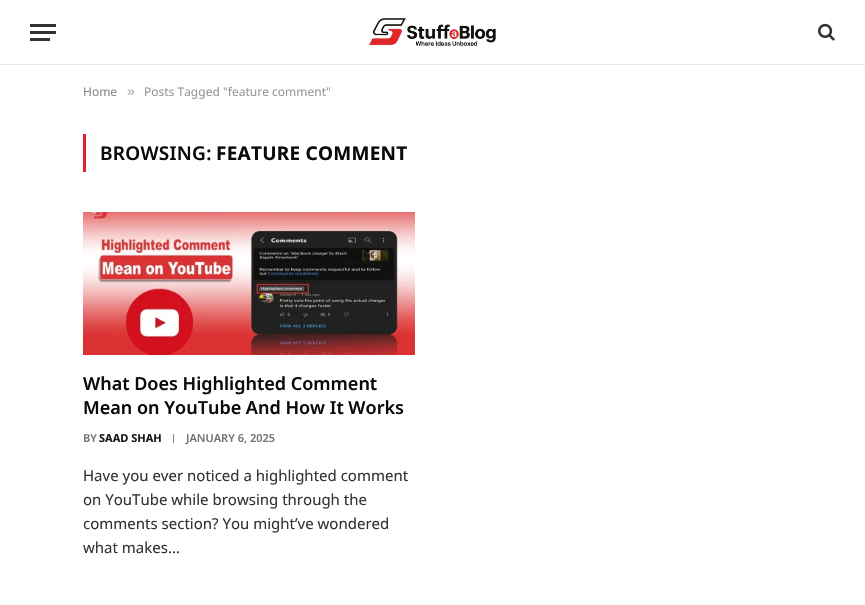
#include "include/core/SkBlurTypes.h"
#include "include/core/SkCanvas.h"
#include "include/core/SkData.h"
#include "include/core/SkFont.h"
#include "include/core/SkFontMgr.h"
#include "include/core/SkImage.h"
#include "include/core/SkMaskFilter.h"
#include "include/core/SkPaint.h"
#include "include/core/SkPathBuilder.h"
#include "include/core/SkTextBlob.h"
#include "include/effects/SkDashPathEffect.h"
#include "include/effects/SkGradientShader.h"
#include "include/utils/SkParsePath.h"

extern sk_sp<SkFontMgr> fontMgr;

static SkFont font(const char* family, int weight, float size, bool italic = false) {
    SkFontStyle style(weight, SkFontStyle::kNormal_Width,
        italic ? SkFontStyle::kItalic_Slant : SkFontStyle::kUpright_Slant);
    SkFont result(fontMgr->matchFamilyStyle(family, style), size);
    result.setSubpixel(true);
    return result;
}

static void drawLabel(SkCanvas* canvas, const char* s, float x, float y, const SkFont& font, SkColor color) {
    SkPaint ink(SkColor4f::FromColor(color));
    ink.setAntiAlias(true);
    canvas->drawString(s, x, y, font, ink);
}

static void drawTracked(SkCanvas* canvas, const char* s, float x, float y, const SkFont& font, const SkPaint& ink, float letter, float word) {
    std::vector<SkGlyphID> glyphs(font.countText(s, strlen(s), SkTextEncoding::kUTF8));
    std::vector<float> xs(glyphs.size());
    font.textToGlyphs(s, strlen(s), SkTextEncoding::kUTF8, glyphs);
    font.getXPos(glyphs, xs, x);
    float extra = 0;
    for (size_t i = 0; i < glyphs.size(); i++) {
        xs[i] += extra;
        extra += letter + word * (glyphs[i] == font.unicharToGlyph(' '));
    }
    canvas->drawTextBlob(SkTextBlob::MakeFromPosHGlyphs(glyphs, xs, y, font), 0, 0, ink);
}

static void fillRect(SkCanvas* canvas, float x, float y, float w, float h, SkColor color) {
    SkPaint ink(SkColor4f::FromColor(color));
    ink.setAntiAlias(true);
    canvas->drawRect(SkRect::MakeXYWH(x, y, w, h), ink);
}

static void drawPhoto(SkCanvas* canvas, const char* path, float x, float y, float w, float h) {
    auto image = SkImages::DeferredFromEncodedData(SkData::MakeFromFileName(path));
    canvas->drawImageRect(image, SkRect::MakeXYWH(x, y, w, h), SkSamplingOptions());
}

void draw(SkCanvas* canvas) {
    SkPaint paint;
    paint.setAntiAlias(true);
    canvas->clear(0xFFFFFFFF);
    fillRect(canvas, 0, 64, 865, 1, 0xFFE8E8E8);
    fillRect(canvas, 30, 38, 20, 3, 0xFF333333);
    fillRect(canvas, 30, 24, 26, 3, 0xFF333333);
    fillRect(canvas, 30, 31, 26, 3, 0xFF333333);
    drawPhoto(canvas, "assets/img1.png", 369, 18, 127, 28);
    drawPhoto(canvas, "assets/img2.png", 818, 23, 17, 18);
    SkFont font1 = font("Noto Sans", 400, 12);
    drawLabel(canvas, "Home", 83, 96, font1, 0xFF8A8A8A);
    SkFont font2 = font("Liberation Sans", 400, 14);
    drawLabel(canvas, "»", 127, 96, font2, 0xFFADADAD);
    drawLabel(canvas, "Posts Tagged \"feature comment\"", 144, 96, font1, 0xFF999999);
    fillRect(canvas, 83, 134, 3, 38, 0xFFDD232F);
    SkFont font3 = font("Noto Sans", 600, 19);
    paint.setColor(0xFF0A0A0A);
    drawTracked(canvas, "BROWSING:", 100, 160, font3, paint, 0.25f, 0);
    SkFont font4 = font("Noto Sans", 700, 19);
    drawTracked(canvas, "FEATURE COMMENT", 216, 160, font4, paint, 0.25f, 0);
    drawPhoto(canvas, "assets/img3.png", 83, 212, 332, 143);
    SkFont font5 = font("Noto Sans", 600, 18);
    drawLabel(canvas, "What Does Highlighted Comment", 83, 390, font5, 0xFF0A0A0A);
    drawLabel(canvas, "Mean on YouTube And How It Works", 83, 414, font5, 0xFF0A0A0A);
    SkFont font6 = font("Noto Sans", 600, 11);
    drawLabel(canvas, "BY", 83, 442, font6, 0xFF757575);
    SkFont font7 = font("Noto Sans", 700, 11);
    drawLabel(canvas, "SAAD SHAH", 99, 442, font7, 0xFF191919);
    SkFont font8 = font("Noto Sans", 600, 9);
    drawLabel(canvas, "|", 171, 441, font8, 0xFF757575);
    drawLabel(canvas, "JANUARY 6, 2025", 186, 442, font6, 0xFF757575);
    SkFont font9 = font("Noto Sans", 400, 15);
    drawLabel(canvas, "Have you ever noticed a highlighted comment", 83, 481, font9, 0xFF333333);
    drawLabel(canvas, "on YouTube while browsing through the", 83, 505, font9, 0xFF333333);
    drawLabel(canvas, "comments section? You might’ve wondered", 83, 529, font9, 0xFF333333);
    drawLabel(canvas, "what makes…", 83, 553, font9, 0xFF333333);
}
